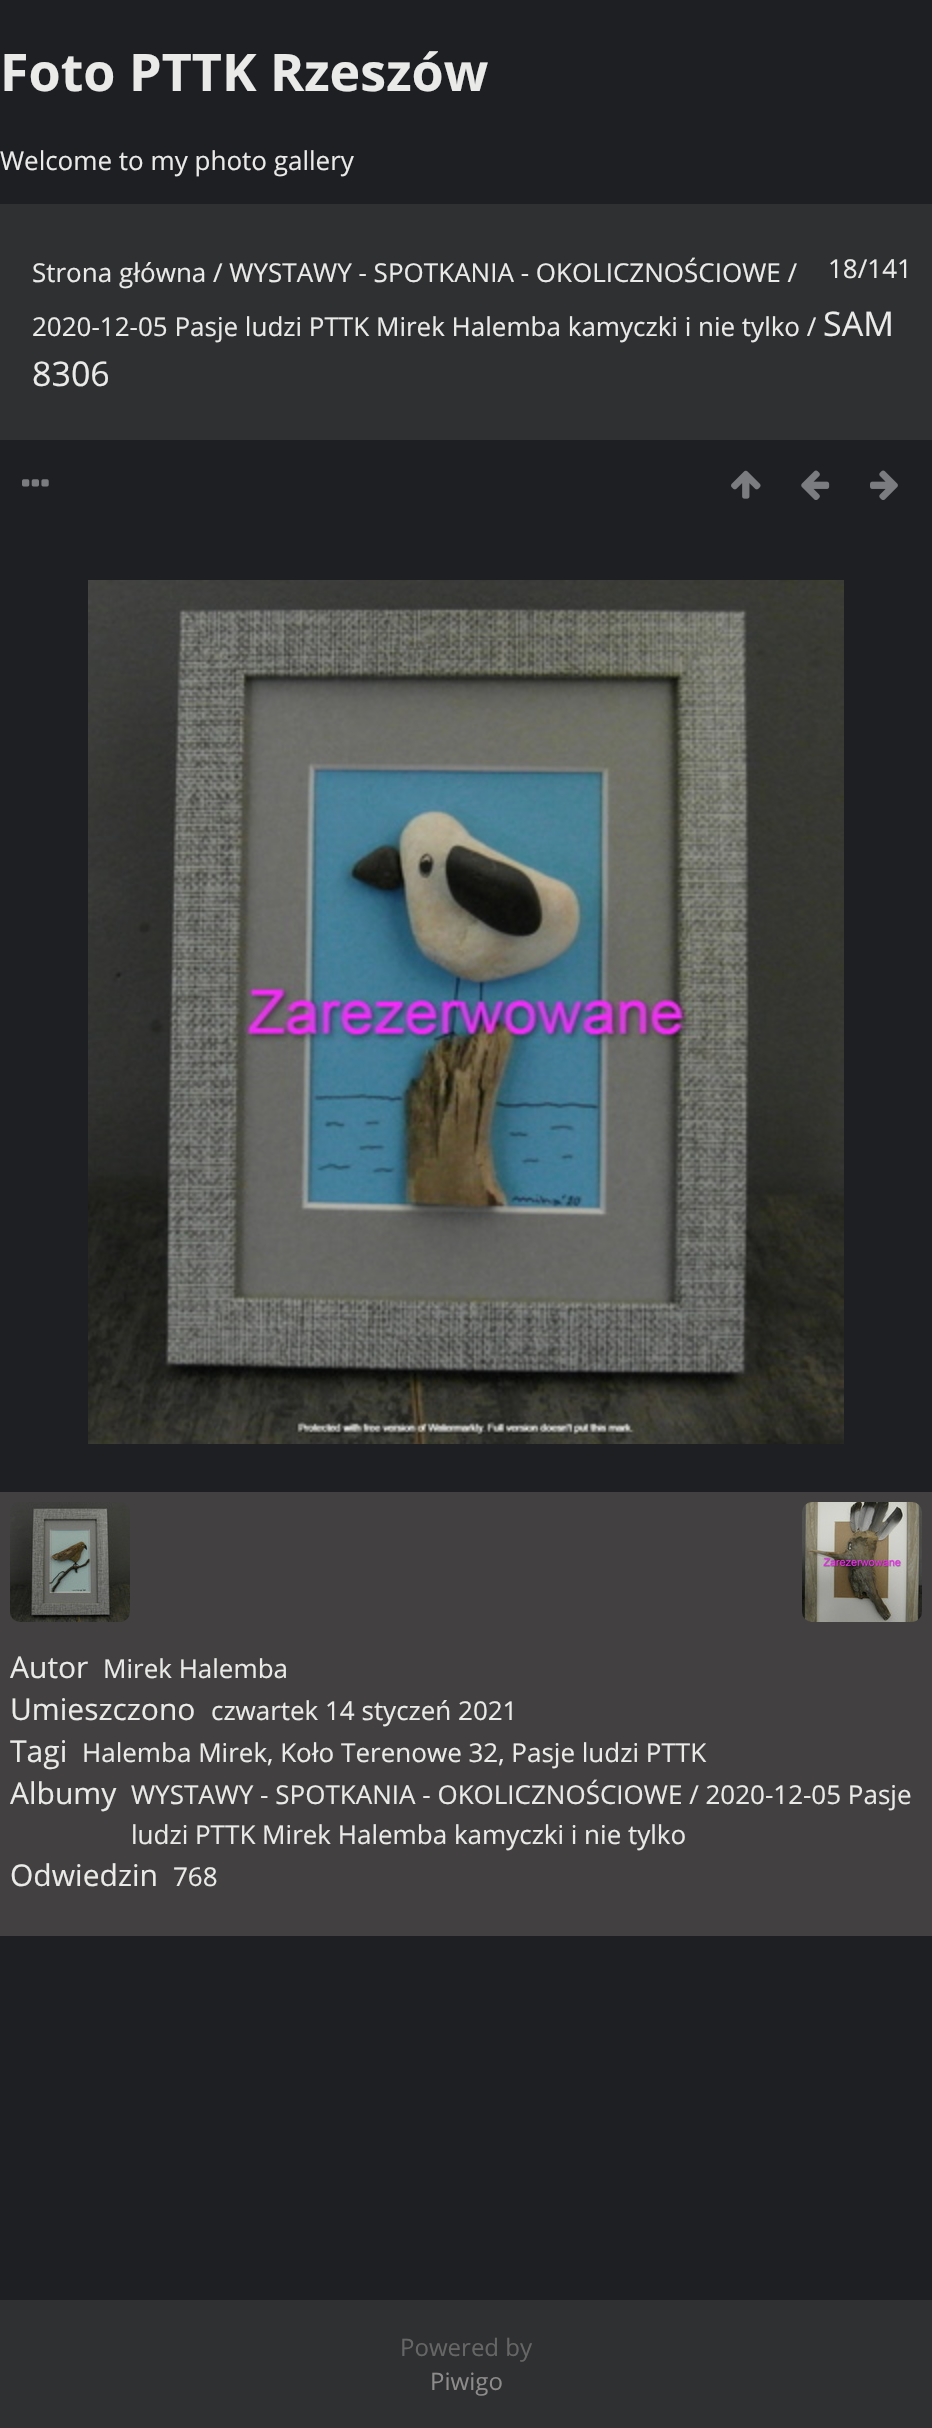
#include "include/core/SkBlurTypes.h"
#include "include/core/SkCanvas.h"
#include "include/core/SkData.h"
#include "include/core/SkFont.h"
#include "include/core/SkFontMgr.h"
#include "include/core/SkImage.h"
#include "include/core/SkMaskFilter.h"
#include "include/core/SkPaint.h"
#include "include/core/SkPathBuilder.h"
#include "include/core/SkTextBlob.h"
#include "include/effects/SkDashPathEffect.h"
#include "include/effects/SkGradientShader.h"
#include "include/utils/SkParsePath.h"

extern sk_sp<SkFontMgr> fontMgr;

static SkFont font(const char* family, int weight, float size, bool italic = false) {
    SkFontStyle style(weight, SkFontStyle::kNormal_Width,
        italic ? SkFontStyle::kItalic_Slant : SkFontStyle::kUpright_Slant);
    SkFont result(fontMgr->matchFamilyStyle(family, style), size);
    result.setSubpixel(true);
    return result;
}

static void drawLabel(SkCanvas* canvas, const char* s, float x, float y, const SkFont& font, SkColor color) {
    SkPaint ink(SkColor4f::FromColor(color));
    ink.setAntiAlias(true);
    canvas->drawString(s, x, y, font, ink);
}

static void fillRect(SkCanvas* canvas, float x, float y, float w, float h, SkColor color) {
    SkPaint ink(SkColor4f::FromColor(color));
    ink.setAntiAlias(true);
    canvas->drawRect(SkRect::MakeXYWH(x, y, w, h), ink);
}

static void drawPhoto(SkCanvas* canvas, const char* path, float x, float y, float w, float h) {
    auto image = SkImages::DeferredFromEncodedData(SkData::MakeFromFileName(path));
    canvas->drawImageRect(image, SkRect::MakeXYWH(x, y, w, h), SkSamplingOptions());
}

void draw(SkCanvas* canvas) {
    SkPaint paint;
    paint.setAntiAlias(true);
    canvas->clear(0xFF1E1F23);
    SkFont font1 = font("Open Sans", 700, 52);
    drawLabel(canvas, "Foto PTTK Rzeszów", 0, 91, font1, 0xFFEAEAE9);
    SkFont font2 = font("Open Sans", 400, 26);
    drawLabel(canvas, "Welcome to my photo gallery", 0, 170, font2, 0xFFEAEAE9);
    fillRect(canvas, 0, 204, 932, 236, 0xFF2F3032);
    drawLabel(canvas, "Strona główna / WYSTAWY - SPOTKANIA - OKOLICZNOŚCIOWE /", 32, 282, font2, 0xFFEAEAE9);
    drawLabel(canvas, "2020-12-05 Pasje ludzi PTTK Mirek Halemba kamyczki i nie tylko /", 32, 336, font2, 0xFFEAEAE9);
    SkFont font3 = font("Open Sans", 400, 34);
    drawLabel(canvas, "SAM", 823, 336, font3, 0xFFEAEAE9);
    drawLabel(canvas, "8306", 32, 386, font3, 0xFFEAEAE9);
    drawLabel(canvas, "18/141", 828, 278, font2, 0xFFEAEAE9);
    drawPhoto(canvas, "assets/img1.png", 22, 479, 27, 8);
    drawPhoto(canvas, "assets/img2.png", 731, 470, 30, 29);
    drawPhoto(canvas, "assets/img3.png", 801, 470, 29, 30);
    drawPhoto(canvas, "assets/img4.png", 870, 470, 28, 30);
    drawPhoto(canvas, "assets/img5.png", 88, 580, 756, 864);
    fillRect(canvas, 0, 1492, 932, 444, 0xFF424040);
    drawPhoto(canvas, "assets/img6.png", 10, 1502, 120, 120);
    drawPhoto(canvas, "assets/img7.png", 802, 1502, 120, 120);
    SkFont font4 = font("Open Sans", 400, 30);
    drawLabel(canvas, "Autor", 10, 1678, font4, 0xFFEAEAE9);
    drawLabel(canvas, "Mirek Halemba", 103, 1678, font2, 0xFFEAEAE9);
    drawLabel(canvas, "Umieszczono", 10, 1720, font4, 0xFFEAEAE9);
    drawLabel(canvas, "czwartek 14 styczeń 2021", 211, 1720, font2, 0xFFEAEAE9);
    drawLabel(canvas, "Tagi", 10, 1762, font4, 0xFFEAEAE9);
    drawLabel(canvas, "Halemba Mirek, Koło Terenowe 32, Pasje ludzi PTTK", 82, 1762, font2, 0xFFEAEAE9);
    drawLabel(canvas, "Albumy", 10, 1804, font4, 0xFFEAEAE9);
    drawLabel(canvas, "WYSTAWY - SPOTKANIA - OKOLICZNOŚCIOWE / 2020-12-05 Pasje", 131, 1804, font2, 0xFFEAEAE9);
    drawLabel(canvas, "ludzi PTTK Mirek Halemba kamyczki i nie tylko", 131, 1844, font2, 0xFFEAEAE9);
    drawLabel(canvas, "Odwiedzin", 10, 1886, font4, 0xFFEAEAE9);
    drawLabel(canvas, "768", 173, 1886, font2, 0xFFEAEAE9);
    fillRect(canvas, 0, 2300, 932, 128, 0xFF2F3032);
    SkFont font5 = font("Open Sans", 400, 24);
    drawLabel(canvas, "Powered by", 400, 2356, font5, 0xFF666666);
    drawLabel(canvas, "Piwigo", 430, 2390, font5, 0xFF8D8B8B);
}
